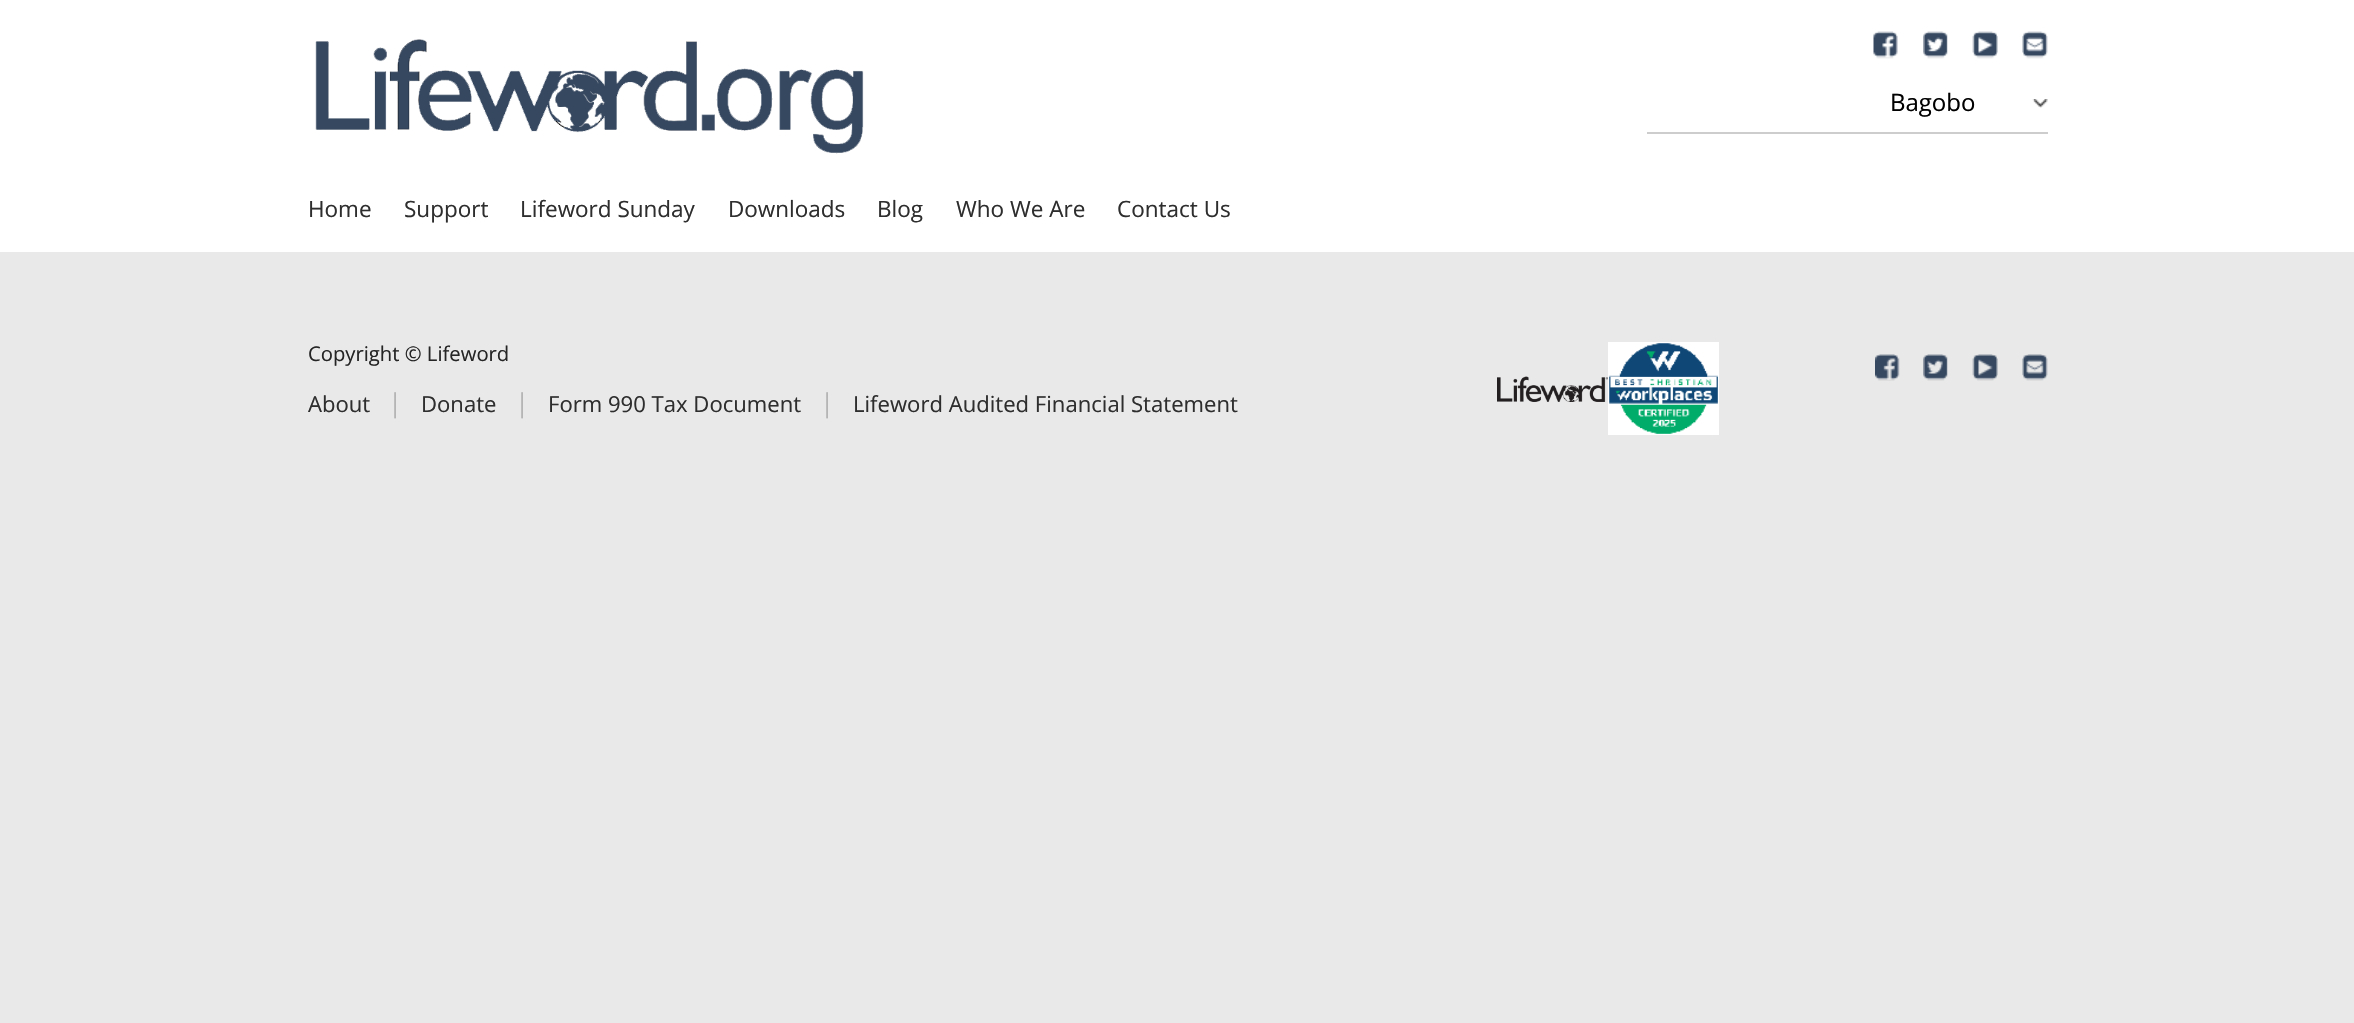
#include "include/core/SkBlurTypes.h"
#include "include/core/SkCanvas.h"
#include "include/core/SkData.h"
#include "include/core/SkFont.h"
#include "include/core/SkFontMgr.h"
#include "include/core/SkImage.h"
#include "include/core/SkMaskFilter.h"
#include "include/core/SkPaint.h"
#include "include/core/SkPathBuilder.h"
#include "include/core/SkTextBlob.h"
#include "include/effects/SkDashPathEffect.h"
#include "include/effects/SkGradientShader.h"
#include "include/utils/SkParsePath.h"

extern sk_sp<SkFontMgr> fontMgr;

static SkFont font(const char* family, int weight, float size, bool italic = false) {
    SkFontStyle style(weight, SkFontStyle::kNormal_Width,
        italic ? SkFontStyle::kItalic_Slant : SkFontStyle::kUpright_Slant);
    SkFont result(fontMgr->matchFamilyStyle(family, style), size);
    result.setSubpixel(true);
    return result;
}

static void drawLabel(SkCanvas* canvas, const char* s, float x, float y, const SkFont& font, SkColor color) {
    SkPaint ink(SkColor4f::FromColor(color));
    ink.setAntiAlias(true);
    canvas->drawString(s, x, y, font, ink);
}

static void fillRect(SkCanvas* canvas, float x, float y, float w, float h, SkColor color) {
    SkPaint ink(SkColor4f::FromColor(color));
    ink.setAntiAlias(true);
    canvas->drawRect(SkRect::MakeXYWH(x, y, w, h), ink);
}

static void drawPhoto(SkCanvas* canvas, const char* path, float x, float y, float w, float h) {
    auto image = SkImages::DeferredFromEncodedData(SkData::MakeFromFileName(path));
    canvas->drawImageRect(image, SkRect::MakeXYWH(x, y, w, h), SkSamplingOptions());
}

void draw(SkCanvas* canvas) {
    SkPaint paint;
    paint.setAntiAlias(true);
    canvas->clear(0xFFE9E9E9);
    fillRect(canvas, 0, 0, 2354, 252, 0xFFFFFFFF);
    drawPhoto(canvas, "assets/img1.png", 1873, 31, 25, 28);
    drawPhoto(canvas, "assets/img2.png", 1923, 31, 25, 28);
    drawPhoto(canvas, "assets/img3.png", 1972, 31, 26, 28);
    drawPhoto(canvas, "assets/img4.png", 2022, 31, 26, 28);
    drawPhoto(canvas, "assets/img5.png", 2032, 99, 16, 9);
    fillRect(canvas, 1647, 132, 401, 2, 0xFFCDCDCD);
    SkFont font1 = font("Open Sans", 400, 24);
    drawLabel(canvas, "Bagobo", 1890, 111, font1, 0xFF000000);
    drawPhoto(canvas, "assets/img6.png", 315, 39, 549, 115);
    SkFont font2 = font("Open Sans", 400, 22.5f);
    drawLabel(canvas, "Home", 308, 217, font2, 0xFF2E2E2E);
    drawLabel(canvas, "Support", 404, 217, font2, 0xFF2E2E2E);
    drawLabel(canvas, "Lifeword Sunday", 520, 217, font2, 0xFF2E2E2E);
    drawLabel(canvas, "Downloads", 728, 217, font2, 0xFF2E2E2E);
    drawLabel(canvas, "Blog", 877, 217, font2, 0xFF2E2E2E);
    drawLabel(canvas, "Who We Are", 956, 217, font2, 0xFF2E2E2E);
    drawLabel(canvas, "Contact Us", 1117, 217, font2, 0xFF2E2E2E);
    SkFont font3 = font("Open Sans", 400, 20.25f);
    drawLabel(canvas, "Copyright © Lifeword", 308, 361, font3, 0xFF252525);
    SkFont font4 = font("Open Sans", 400, 22.1f);
    drawLabel(canvas, "About", 308, 412, font4, 0xFF2E2E2E);
    SkFont font5 = font("Open Sans", 400, 26);
    drawLabel(canvas, "|", 388, 412, font5, 0xFFB5B5B5);
    drawLabel(canvas, "Donate", 421, 412, font4, 0xFF2E2E2E);
    drawLabel(canvas, "|", 515, 412, font5, 0xFFB5B5B5);
    drawLabel(canvas, "Form 990 Tax Document", 548, 412, font4, 0xFF2E2E2E);
    drawLabel(canvas, "|", 820, 412, font5, 0xFFB5B5B5);
    drawLabel(canvas, "Lifeword Audited Financial Statement", 853, 412, font4, 0xFF2E2E2E);
    drawPhoto(canvas, "assets/img7.png", 1497, 376, 111, 26);
    drawPhoto(canvas, "assets/img8.png", 1608, 342, 111, 93);
    drawPhoto(canvas, "assets/img9.png", 1875, 354, 25, 27);
    drawPhoto(canvas, "assets/img10.png", 1923, 354, 25, 27);
    drawPhoto(canvas, "assets/img11.png", 1972, 354, 26, 27);
    drawPhoto(canvas, "assets/img12.png", 2022, 354, 26, 27);
}
